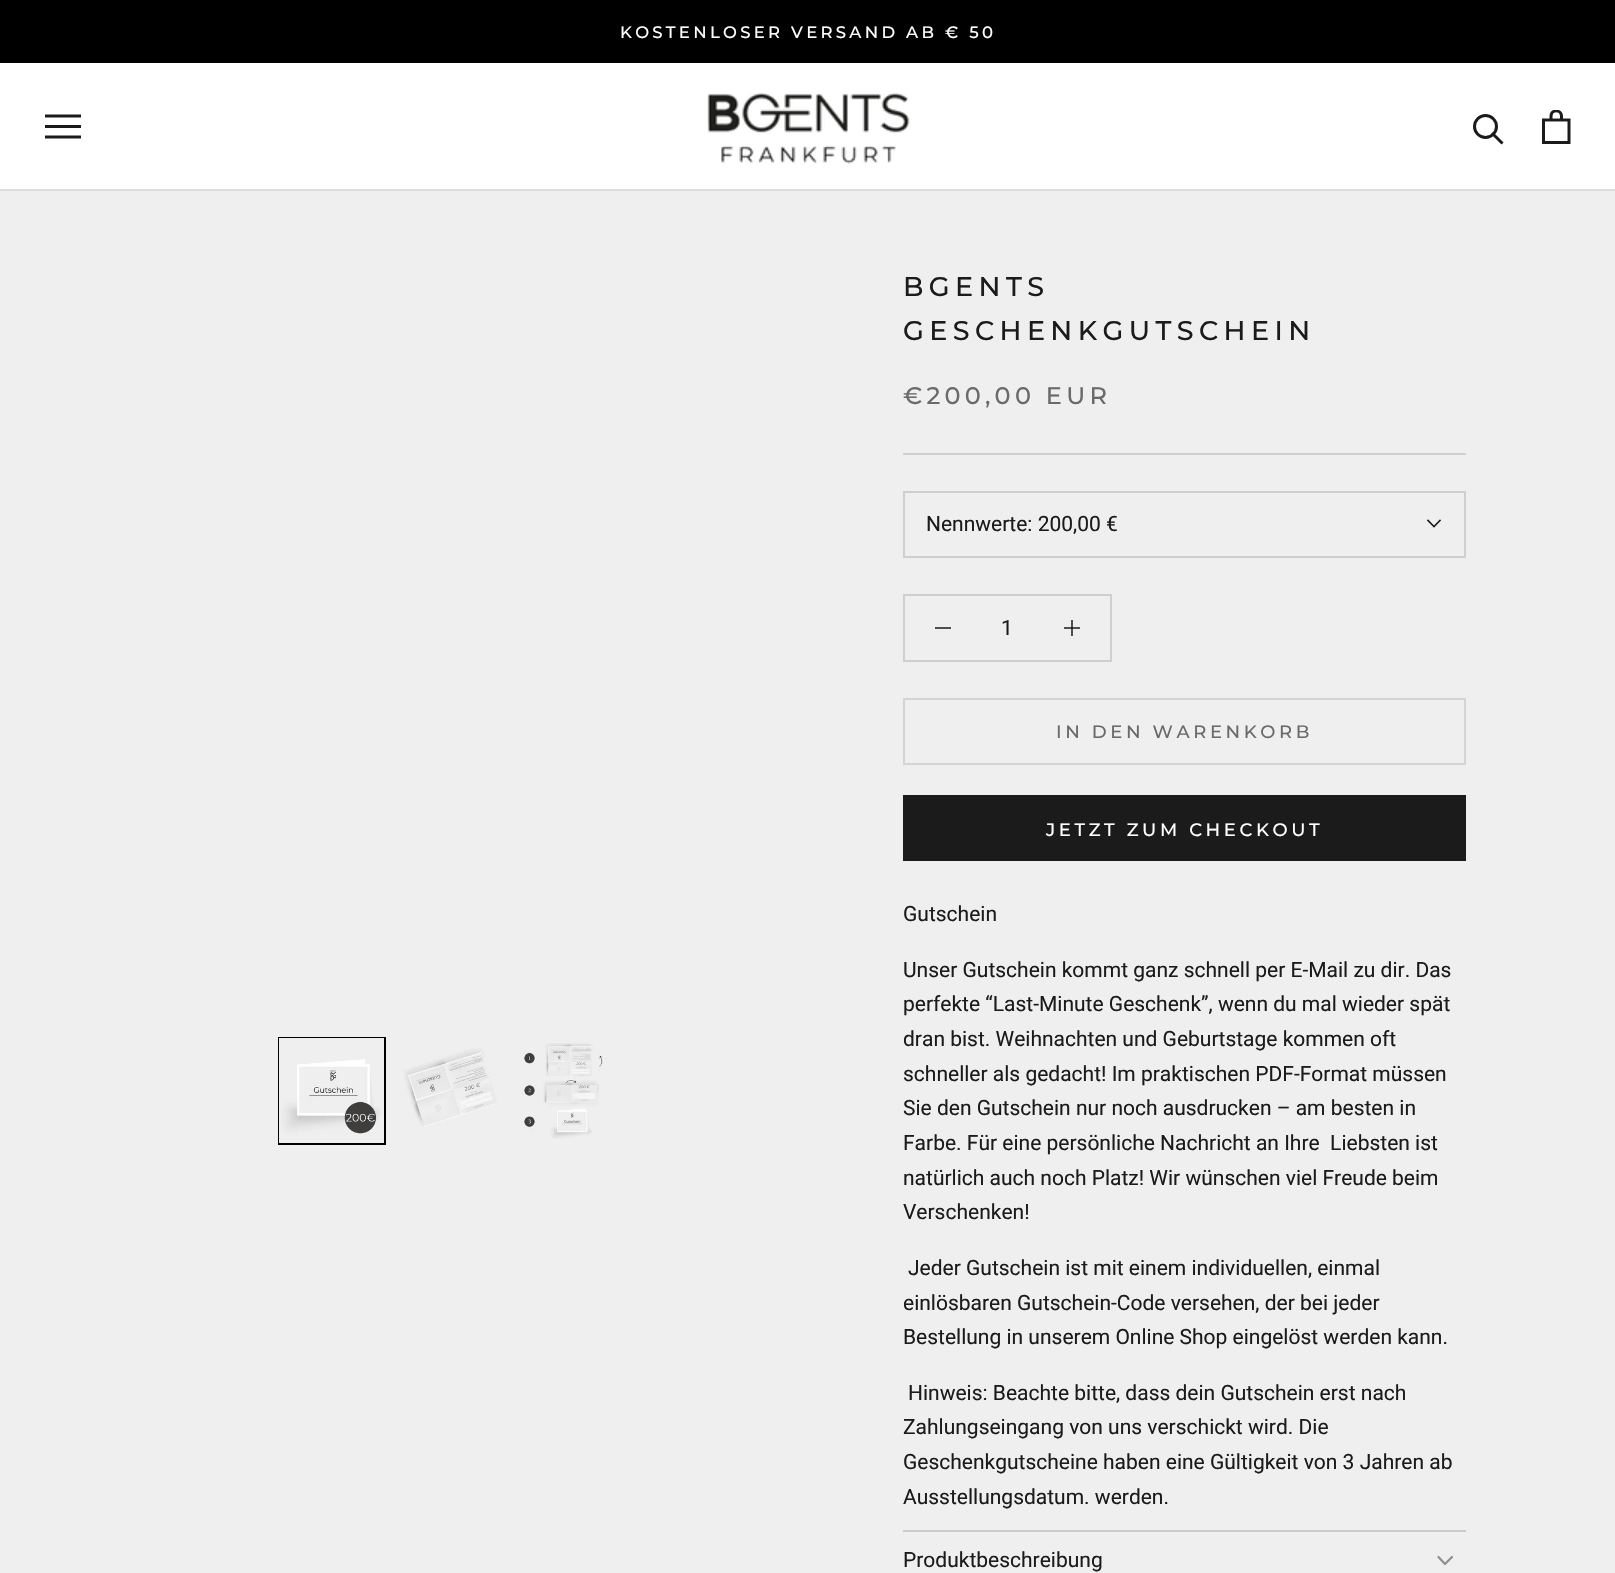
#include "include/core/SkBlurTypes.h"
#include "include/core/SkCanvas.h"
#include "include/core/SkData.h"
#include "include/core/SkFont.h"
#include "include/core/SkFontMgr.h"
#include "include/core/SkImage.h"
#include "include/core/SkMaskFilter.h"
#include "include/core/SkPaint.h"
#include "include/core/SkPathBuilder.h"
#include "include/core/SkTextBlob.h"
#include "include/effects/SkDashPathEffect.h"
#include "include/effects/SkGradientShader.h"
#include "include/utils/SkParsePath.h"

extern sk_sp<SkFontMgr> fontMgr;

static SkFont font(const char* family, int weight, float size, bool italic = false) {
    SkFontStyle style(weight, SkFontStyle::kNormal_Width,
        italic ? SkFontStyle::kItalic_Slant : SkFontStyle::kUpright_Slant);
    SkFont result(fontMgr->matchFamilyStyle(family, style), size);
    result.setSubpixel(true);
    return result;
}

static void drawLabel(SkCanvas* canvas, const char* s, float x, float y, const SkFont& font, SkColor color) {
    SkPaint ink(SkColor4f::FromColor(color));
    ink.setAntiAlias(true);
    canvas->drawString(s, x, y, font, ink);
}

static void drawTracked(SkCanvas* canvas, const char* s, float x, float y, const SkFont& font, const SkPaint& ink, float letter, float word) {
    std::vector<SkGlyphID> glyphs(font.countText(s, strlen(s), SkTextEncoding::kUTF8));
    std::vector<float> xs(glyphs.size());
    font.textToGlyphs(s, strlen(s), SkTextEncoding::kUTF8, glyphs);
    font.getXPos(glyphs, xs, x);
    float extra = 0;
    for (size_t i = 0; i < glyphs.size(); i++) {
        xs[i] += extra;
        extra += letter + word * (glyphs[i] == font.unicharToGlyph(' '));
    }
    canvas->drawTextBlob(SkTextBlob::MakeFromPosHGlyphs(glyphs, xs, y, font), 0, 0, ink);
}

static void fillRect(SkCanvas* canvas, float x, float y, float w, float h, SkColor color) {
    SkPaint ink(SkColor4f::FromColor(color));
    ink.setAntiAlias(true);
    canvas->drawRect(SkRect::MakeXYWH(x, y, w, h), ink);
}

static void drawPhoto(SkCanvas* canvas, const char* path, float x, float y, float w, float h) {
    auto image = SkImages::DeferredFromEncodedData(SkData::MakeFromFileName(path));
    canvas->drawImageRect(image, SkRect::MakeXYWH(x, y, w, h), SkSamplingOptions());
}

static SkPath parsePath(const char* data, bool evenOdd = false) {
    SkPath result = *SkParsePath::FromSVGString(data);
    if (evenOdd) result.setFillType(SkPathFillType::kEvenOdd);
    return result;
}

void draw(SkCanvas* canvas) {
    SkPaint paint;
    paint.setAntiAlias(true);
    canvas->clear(0xFFEFEFEF);
    fillRect(canvas, 1064, 627, 16, 2, 0xFF515050);
    fillRect(canvas, 0, 0, 1615, 63, 0xFF000000);
    SkFont font1 = font("Montserrat", 500, 16.5f);
    paint.setColor(0xFFFFFFFF);
    drawTracked(canvas, "KOSTENLOSER VERSAND AB € 50", 620, 38, font1, paint, 3.3f, 0);
    fillRect(canvas, 0, 63, 1615, 126, 0xFFFFFFFF);
    fillRect(canvas, 0, 189, 1615, 2, 0xFFDDDDDD);
    paint.setColor(0xFF1C1B1B);
    canvas->drawPath(parsePath("M45 138.5V135.5H81V138.5ZM45 125H81V128H45ZM45 114.5H81V117.5H45Z"), paint);
    drawPhoto(canvas, "assets/img1.png", 707, 92, 203, 72);
    paint.setStroke(true);
    paint.setStrokeWidth(3);
    paint.setStrokeCap(SkPaint::kSquare_Cap);
    canvas->drawPath(parsePath("M1501.5 142.5L1493 134"), paint);
    paint.setStrokeCap(SkPaint::kButt_Cap);
    canvas->drawCircle(1485.5f, 126.5f, 11, paint);
    drawPhoto(canvas, "assets/img2.png", 1542, 110, 29, 34);
    paint.setStrokeWidth(2);
    paint.setColor(0xFF000000);
    canvas->drawRect(SkRect::MakeXYWH(279, 1038, 106, 106), paint);
    drawPhoto(canvas, "assets/img3.png", 279, 1038, 105, 105);
    drawPhoto(canvas, "assets/img4.png", 404, 1048, 93, 79);
    drawPhoto(canvas, "assets/img5.png", 524, 1043, 79, 96);
    fillRect(canvas, 903, 453, 563, 2, 0xFFCFCFCF);
    SkFont font2 = font("Montserrat", 500, 27);
    paint.setStroke(false);
    paint.setColor(0xFF1C1B1B);
    drawTracked(canvas, "BGENTS", 903, 296, font2, paint, 5.4f, 0);
    drawTracked(canvas, "GESCHENKGUTSCHEIN", 903, 340, font2, paint, 5.4f, 0);
    SkFont font3 = font("Montserrat", 500, 24);
    paint.setColor(0xFF6A6A6A);
    drawTracked(canvas, "€200,00 EUR", 903, 404, font3, paint, 4.25f, 0);
    paint.setStroke(true);
    paint.setColor(0xFFCFCFCF);
    canvas->drawRect(SkRect::MakeXYWH(904, 492, 561, 65), paint);
    SkFont font4 = font("Roboto", 400, 21);
    drawLabel(canvas, "Nennwerte: 200,00 €", 926, 531, font4, 0xFF1C1B1B);
    paint.setStrokeWidth(1.6f);
    paint.setStrokeCap(SkPaint::kSquare_Cap);
    paint.setColor(0xFF1C1B1B);
    canvas->drawPath(parsePath("M1440 520.5L1434 526.5L1428 520.5"), paint);
    paint.setStrokeWidth(2);
    paint.setStrokeCap(SkPaint::kButt_Cap);
    paint.setColor(0xFFCFCFCF);
    canvas->drawRect(SkRect::MakeXYWH(904, 595, 207, 66), paint);
    fillRect(canvas, 935, 627, 16, 2, 0xFF515050);
    drawLabel(canvas, "1", 1001, 635, font4, 0xFF1C1B1B);
    fillRect(canvas, 1071, 620, 2, 16, 0xFF515050);
    fillRect(canvas, 1071, 627, 2, 2, 0xFF292828);
    paint.setColor(0xFFD4D4D4);
    canvas->drawRect(SkRect::MakeXYWH(904, 699, 561, 65), paint);
    SkFont font5 = font("Montserrat", 500, 18);
    paint.setStroke(false);
    paint.setColor(0xFF6A6A6A);
    drawTracked(canvas, "IN DEN WARENKORB", 1056, 738, font5, paint, 3.6f, 0);
    paint.setStroke(true);
    paint.setColor(0xFF1C1B1B);
    canvas->drawRect(SkRect::MakeXYWH(904, 796, 561, 64), paint);
    fillRect(canvas, 905, 797, 559, 62, 0xFF1C1B1B);
    paint.setStroke(false);
    paint.setColor(0xFFFFFFFF);
    drawTracked(canvas, "JETZT ZUM CHECKOUT", 1046, 836, font5, paint, 3.6f, 0);
    drawLabel(canvas, "Gutschein", 903, 921, font4, 0xFF1C1B1B);
    drawLabel(canvas, "Unser Gutschein kommt ganz schnell per E-Mail zu dir. Das", 903, 977, font4, 0xFF1C1B1B);
    drawLabel(canvas, "perfekte “Last-Minute Geschenk”, wenn du mal wieder spät", 903, 1011, font4, 0xFF1C1B1B);
    drawLabel(canvas, "dran bist. Weihnachten und Geburtstage kommen oft", 903, 1046, font4, 0xFF1C1B1B);
    drawLabel(canvas, "schneller als gedacht! Im praktischen PDF-Format müssen", 903, 1081, font4, 0xFF1C1B1B);
    drawLabel(canvas, "Sie den Gutschein nur noch ausdrucken – am besten in", 903, 1115, font4, 0xFF1C1B1B);
    drawLabel(canvas, "Farbe. Für eine persönliche Nachricht an Ihre  Liebsten ist", 903, 1150, font4, 0xFF1C1B1B);
    drawLabel(canvas, "natürlich auch noch Platz! Wir wünschen viel Freude beim", 903, 1185, font4, 0xFF1C1B1B);
    drawLabel(canvas, "Verschenken!", 903, 1219, font4, 0xFF1C1B1B);
    drawLabel(canvas, "Jeder Gutschein ist mit einem individuellen, einmal", 908, 1275, font4, 0xFF1C1B1B);
    drawLabel(canvas, "einlösbaren Gutschein-Code versehen, der bei jeder", 903, 1310, font4, 0xFF1C1B1B);
    drawLabel(canvas, "Bestellung in unserem Online Shop eingelöst werden kann.", 903, 1344, font4, 0xFF1C1B1B);
    drawLabel(canvas, "Hinweis: Beachte bitte, dass dein Gutschein erst nach", 908, 1400, font4, 0xFF1C1B1B);
    drawLabel(canvas, "Zahlungseingang von uns verschickt wird. Die", 903, 1434, font4, 0xFF1C1B1B);
    drawLabel(canvas, "Geschenkgutscheine haben eine Gültigkeit von 3 Jahren ab", 903, 1469, font4, 0xFF1C1B1B);
    drawLabel(canvas, "Ausstellungsdatum. werden.", 903, 1504, font4, 0xFF1C1B1B);
    fillRect(canvas, 903, 1530, 563, 2, 0xFFCBCBCB);
    drawLabel(canvas, "Produktbeschreibung", 903, 1567, font4, 0xFF1C1B1B);
    paint.setStroke(true);
    paint.setStrokeWidth(2.2f);
    paint.setStrokeCap(SkPaint::kRound_Cap);
    paint.setStrokeJoin(SkPaint::kRound_Join);
    paint.setColor(0xFF8F8F8F);
    canvas->drawPath(parsePath("M1452 1557L1445 1564L1438.5 1557"), paint);
}
